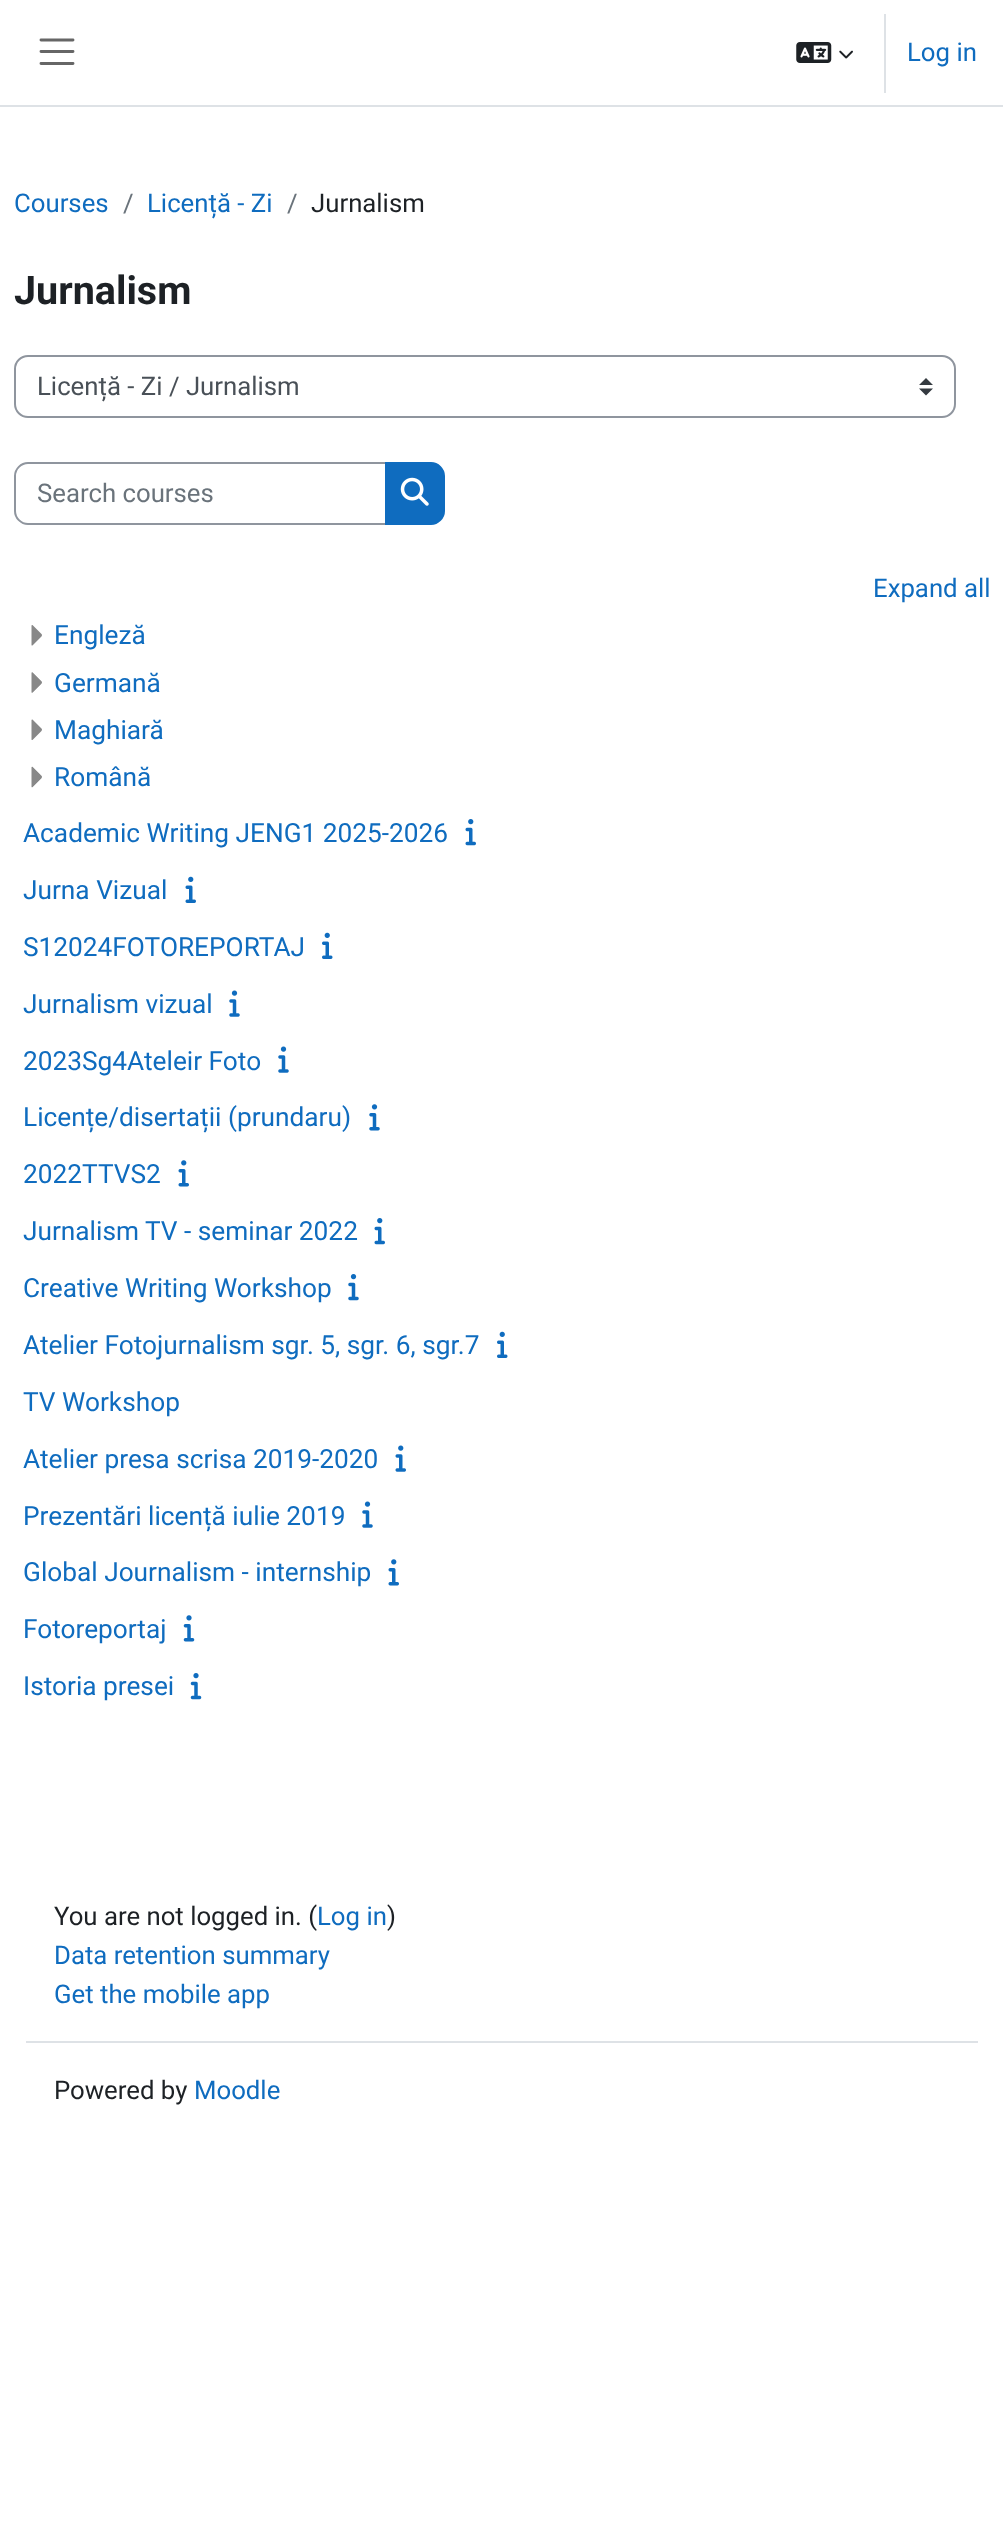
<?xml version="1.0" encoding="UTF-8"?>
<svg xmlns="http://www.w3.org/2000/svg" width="1003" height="2534">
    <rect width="100%" height="100%" fill="#FFFFFF"/>
    <rect x="0" y="105" width="1003" height="2" fill="#DEE2E6"/>
    <path d="M 41 40 H 73 M 41 51.5 H 73 M 41 63.5 H 73" fill="none" stroke="#666666" stroke-width="2.9" stroke-linecap="round"/>
    <image x="796" y="42" width="36" height="21" href="img_01.png"/>
    <image x="839" y="50" width="14" height="9" href="img_02.png"/>
    <rect x="884" y="14" width="2" height="79" fill="#DEE2E6"/>
    <text x="907" y="61" font-family="Roboto" font-size="25.75" fill="#0F6CBF">Log in</text>
    <text x="14" y="212" font-family="Roboto" font-size="25.75" fill="#0F6CBF">Courses</text>
    <text x="123" y="212" font-family="Roboto" font-size="25.75" fill="#6A737B">/</text>
    <text x="147" y="212" font-family="Roboto" font-size="25.75" fill="#0F6CBF">Licență - Zi</text>
    <text x="287" y="212" font-family="Roboto" font-size="25.75" fill="#6A737B">/</text>
    <text x="311" y="212" font-family="Roboto" font-size="25.75" fill="#1D2125">Jurnalism</text>
    <text x="14" y="304" font-family="Roboto" font-size="39.5" font-weight="700" fill="#1D2125">Jurnalism</text>
    <path d="M 926 378 L 919 385 H 933 Z M 926 395.5 L 919 388.5 H 933 Z" fill="#343A40"/>
    <rect x="15" y="356" width="940" height="61" rx="13" fill="none" stroke="#8F959E" stroke-width="2"/>
    <text x="37" y="395" font-family="Roboto" font-size="25.75" fill="#495057">Licență - Zi / Jurnalism</text>
    <path d="M 28 463 H 386 V 524 H 28 C 21 524 15 518 15 511 V 476 C 15 469 21 463 28 463 Z" fill="none" stroke="#8F959E" stroke-width="2"/>
    <text x="37" y="502" font-family="Roboto" font-size="25.75" fill="#6A737B">Search courses</text>
    <path d="M 386 463 H 431 C 438 463 444 469 444 476 V 511 C 444 518 438 524 431 524 H 386 Z" fill="#0F6CBF" stroke="#0F6CBF" stroke-width="2"/>
    <image x="400" y="477" width="29" height="29" href="img_03.png"/>
    <text x="873" y="597" font-family="Roboto" font-size="25.75" fill="#0F6CBF">Expand all</text>
    <image x="31" y="625" width="11" height="21" href="img_04.png"/>
    <text x="54" y="644" font-family="Roboto" font-size="26.25" fill="#0F6CBF">Engleză</text>
    <image x="31" y="672" width="11" height="21" href="img_05.png"/>
    <text x="54" y="692" font-family="Roboto" font-size="26.25" fill="#0F6CBF">Germană</text>
    <image x="31" y="719" width="11" height="21" href="img_06.png"/>
    <text x="54" y="739" font-family="Roboto" font-size="26.25" fill="#0F6CBF">Maghiară</text>
    <image x="31" y="766" width="11" height="22" href="img_07.png"/>
    <text x="54" y="786" font-family="Roboto" font-size="26.25" fill="#0F6CBF">Română</text>
    <text x="23" y="842" font-family="Roboto" font-size="26.25" fill="#0F6CBF">Academic Writing JENG1 2025-2026</text>
    <image x="465" y="819" width="11" height="27" href="img_08.png"/>
    <text x="23" y="899" font-family="Roboto" font-size="26.25" fill="#0F6CBF">Jurna Vizual</text>
    <image x="185" y="876" width="11" height="27" href="img_09.png"/>
    <text x="23" y="956" font-family="Roboto" font-size="26.25" fill="#0F6CBF">S12024FOTOREPORTAJ</text>
    <image x="322" y="932" width="11" height="27" href="img_10.png"/>
    <text x="23" y="1013" font-family="Roboto" font-size="26.25" fill="#0F6CBF">Jurnalism vizual</text>
    <image x="229" y="990" width="11" height="27" href="img_11.png"/>
    <text x="23" y="1070" font-family="Roboto" font-size="26.25" fill="#0F6CBF">2023Sg4Ateleir Foto</text>
    <image x="278" y="1046" width="11" height="27" href="img_11.png"/>
    <text x="23" y="1126" font-family="Roboto" font-size="26.25" fill="#0F6CBF">Licențe/disertații (prundaru)</text>
    <image x="369" y="1104" width="11" height="27" href="img_12.png"/>
    <text x="23" y="1183" font-family="Roboto" font-size="26.25" fill="#0F6CBF">2022TTVS2</text>
    <image x="178" y="1160" width="11" height="27" href="img_13.png"/>
    <text x="23" y="1240" font-family="Roboto" font-size="26.25" fill="#0F6CBF">Jurnalism TV - seminar 2022</text>
    <image x="374" y="1218" width="11" height="27" href="img_08.png"/>
    <text x="23" y="1297" font-family="Roboto" font-size="26.25" fill="#0F6CBF">Creative Writing Workshop</text>
    <image x="348" y="1274" width="11" height="27" href="img_14.png"/>
    <text x="23" y="1354" font-family="Roboto" font-size="26.25" fill="#0F6CBF">Atelier Fotojurnalism sgr. 5, sgr. 6, sgr.7</text>
    <image x="497" y="1331" width="11" height="27" href="img_10.png"/>
    <text x="23" y="1411" font-family="Roboto" font-size="26.25" fill="#0F6CBF">TV Workshop</text>
    <text x="23" y="1468" font-family="Roboto" font-size="26.25" fill="#0F6CBF">Atelier presa scrisa 2019-2020</text>
    <image x="395" y="1445" width="11" height="27" href="img_15.png"/>
    <text x="23" y="1525" font-family="Roboto" font-size="26.25" fill="#0F6CBF">Prezentări licență iulie 2019</text>
    <image x="362" y="1501" width="11" height="27" href="img_11.png"/>
    <text x="23" y="1581" font-family="Roboto" font-size="26.25" fill="#0F6CBF">Global Journalism - internship</text>
    <image x="388" y="1559" width="11" height="27" href="img_13.png"/>
    <text x="23" y="1638" font-family="Roboto" font-size="26.25" fill="#0F6CBF">Fotoreportaj</text>
    <image x="183" y="1615" width="12" height="27" href="img_16.png"/>
    <text x="23" y="1695" font-family="Roboto" font-size="26.25" fill="#0F6CBF">Istoria presei</text>
    <image x="190" y="1673" width="12" height="27" href="img_17.png"/>
    <rect x="26" y="2041" width="952" height="2" fill="#DEE2E6"/>
    <text x="54" y="1925" font-family="Roboto" font-size="25.75" fill="#1D2125">You are not logged in. (</text>
    <text x="317" y="1925" font-family="Roboto" font-size="25.75" fill="#0F6CBF">Log in</text>
    <text x="387" y="1925" font-family="Roboto" font-size="25.75" fill="#1D2125">)</text>
    <text font-family="Roboto" font-size="25.75" fill="#0F6CBF">
        <tspan x="54" y="1964">Data retention summary</tspan>
        <tspan x="54" y="2003">Get the mobile app</tspan>
    </text>
    <text x="54" y="2099" font-family="Roboto" font-size="25.75" fill="#1D2125">Powered by</text>
    <text x="194" y="2099" font-family="Roboto" font-size="25.75" fill="#0F6CBF">Moodle</text>
</svg>
